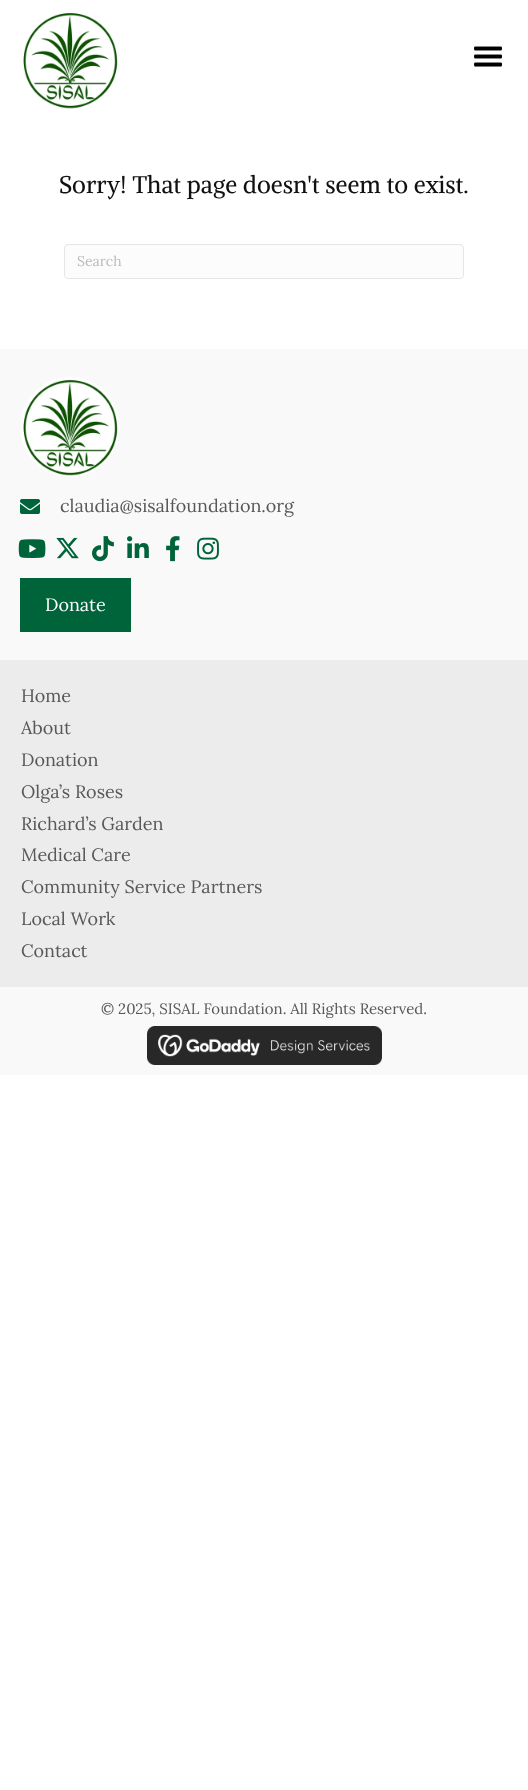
<?xml version="1.0" encoding="UTF-8"?>
<svg xmlns="http://www.w3.org/2000/svg" width="528" height="1790">
    <rect width="100%" height="100%" fill="#FFFFFF"/>
    <image x="23" y="12" width="95" height="97" href="img_01.png"/>
    <image x="474" y="46" width="28" height="21" href="img_02.png"/>
    <text x="59" y="193" font-family="Alike" font-size="24" fill="#111111">Sorry! That page doesn't seem to exist.</text>
    <rect x="64.5" y="244.5" width="399" height="34" rx="3.5" fill="#FCFCFC" stroke="#E6E6E6"/>
    <text x="77" y="266" font-family="Lora" font-size="14" fill="#BABABA">Search</text>
    <rect x="0" y="349" width="528" height="311" fill="#F9F9F9"/>
    <image x="20" y="377" width="100" height="100" href="img_03.png"/>
    <image x="20" y="499" width="20" height="15" href="img_04.png"/>
    <text x="60" y="512" font-family="Lora" font-size="18" fill="#585858">claudia@sisalfoundation.org</text>
    <image x="18" y="539" width="28" height="19" href="img_05.png"/>
    <image x="56" y="537" width="23" height="22" href="img_06.png"/>
    <image x="92" y="536" width="22" height="26" href="img_07.png"/>
    <image x="127" y="536" width="22" height="22" href="img_08.png"/>
    <image x="166" y="536" width="14" height="26" href="img_09.png"/>
    <image x="197" y="537" width="22" height="23" href="img_10.png"/>
    <rect x="20" y="578" width="111" height="54" fill="#00643A"/>
    <text x="45" y="611" font-family="Lora" font-size="18" fill="#FFFFFF">Donate</text>
    <rect x="0" y="660" width="528" height="327" fill="#ECECEC"/>
    <text font-family="Lora" font-size="18" fill="#585858">
        <tspan x="21" y="702">Home</tspan>
        <tspan x="21" y="734">About</tspan>
        <tspan x="21" y="766">Donation</tspan>
        <tspan x="21" y="798">Olga’s Roses</tspan>
        <tspan x="21" y="830">Richard’s Garden</tspan>
        <tspan x="21" y="861">Medical Care</tspan>
        <tspan x="21" y="893">Community Service Partners</tspan>
        <tspan x="21" y="925">Local Work</tspan>
        <tspan x="21" y="957">Contact</tspan>
    </text>
    <rect x="0" y="987" width="528" height="88" fill="#F9F9F9"/>
    <text x="101" y="1014" font-family="Lora" font-size="15" fill="#585858">© 2025, SISAL Foundation. All Rights Reserved.</text>
    <image x="147" y="1026" width="235" height="39" href="img_11.png"/>
</svg>
